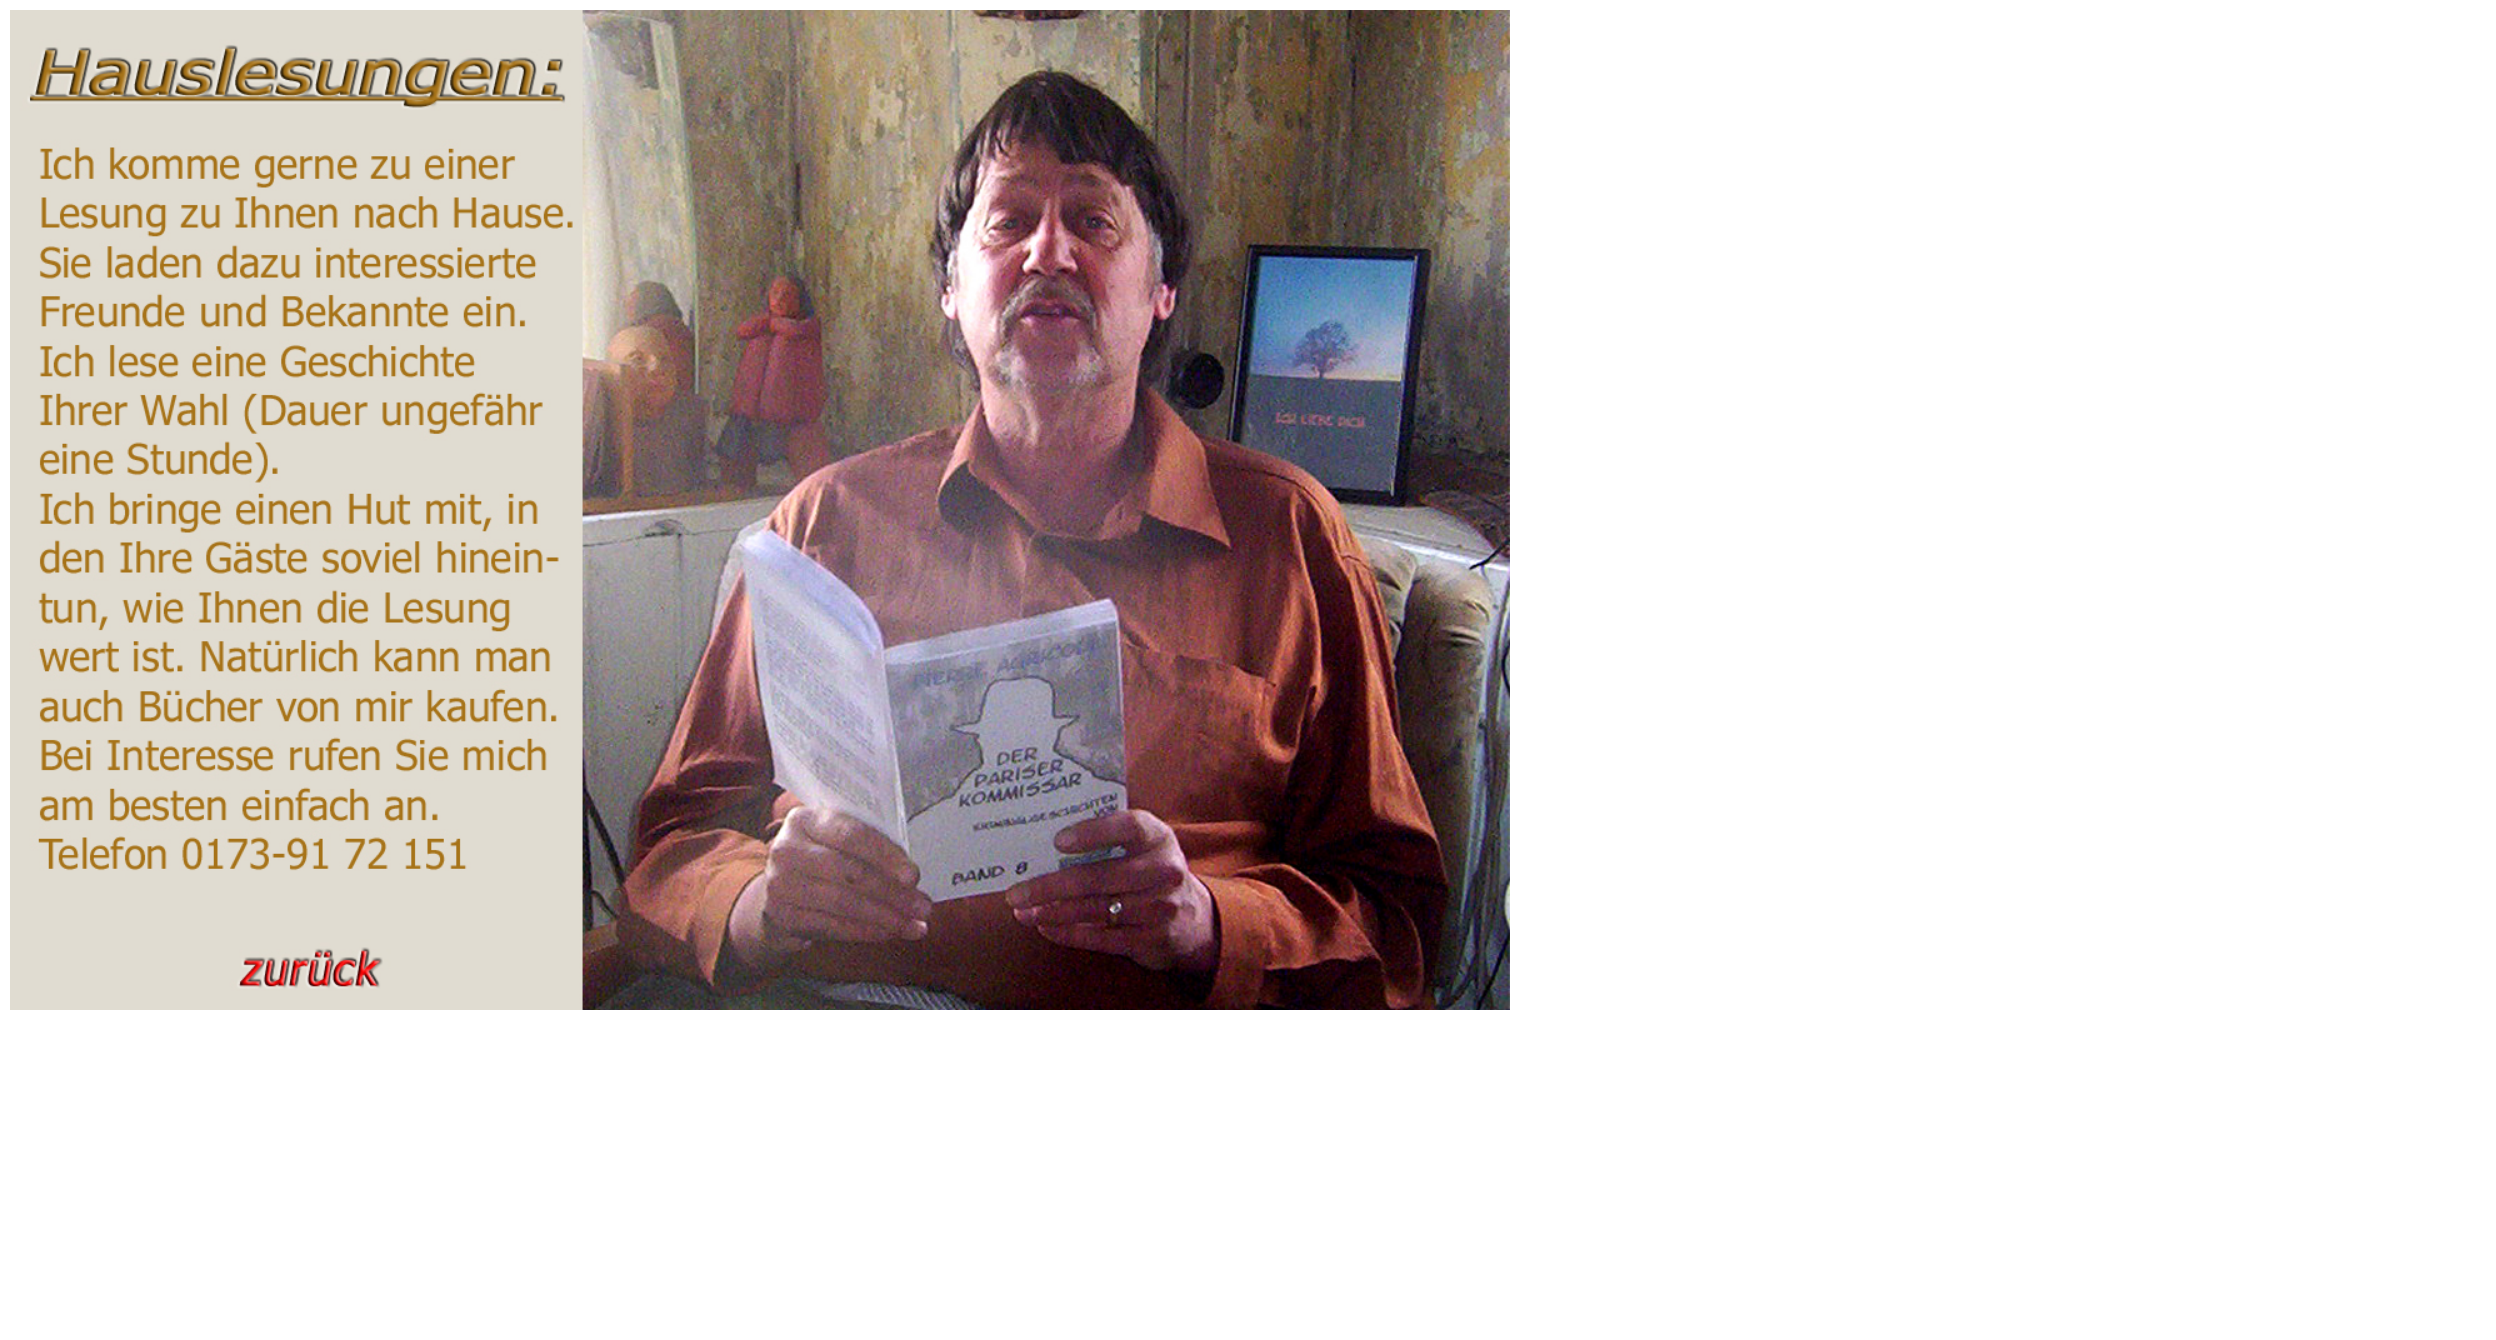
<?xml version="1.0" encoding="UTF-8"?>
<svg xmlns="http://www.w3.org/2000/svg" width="2496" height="1340">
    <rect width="100%" height="100%" fill="#FFFFFF"/>
    <image x="10" y="10" width="1500" height="1000" href="img_01.png"/>
</svg>
